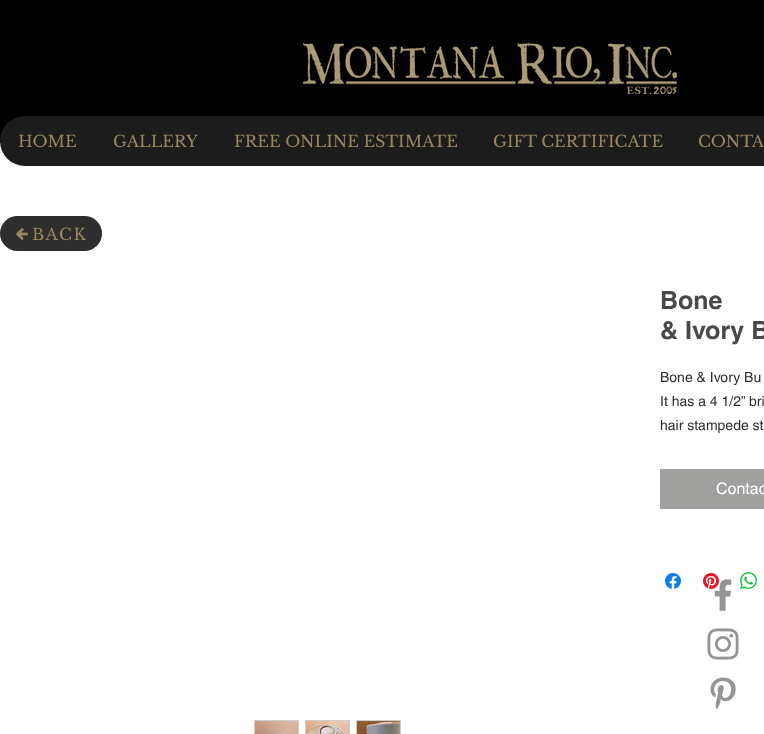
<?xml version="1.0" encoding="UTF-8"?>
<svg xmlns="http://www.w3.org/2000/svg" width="764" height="734">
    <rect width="100%" height="100%" fill="#000000"/>
    <image x="303" y="43" width="374" height="51" href="img_01.png"/>
    <rect x="0" y="143" width="764" height="591" fill="#FFFFFF"/>
    <rect x="0" y="116" width="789" height="50" rx="25" fill="#1C1C1C"/>
    <text x="18" y="147" font-family="Libre Baskerville" font-size="16" fill="#98865D">HOME</text>
    <text x="113" y="147" font-family="Libre Baskerville" font-size="16" fill="#98865D">GALLERY</text>
    <text x="234" y="147" font-family="Libre Baskerville" font-size="16" fill="#98865D">FREE ONLINE ESTIMATE</text>
    <text x="493" y="147" font-family="Libre Baskerville" font-size="16" fill="#98865D">GIFT CERTIFICATE</text>
    <text x="698" y="147" font-family="Libre Baskerville" font-size="16" fill="#98865D">CONTA</text>
    <rect x="0" y="216" width="102" height="35" rx="17.5" fill="#2F2E2E"/>
    <image x="16" y="228" width="12" height="12" href="img_02.png"/>
    <text x="32" y="240" font-family="Libre Baskerville" font-size="16" letter-spacing="1.5" fill="#98865D">BACK</text>
    <text font-family="helvetica" font-size="25" font-weight="700" fill="#494949">
        <tspan x="660" y="309">Bone</tspan>
        <tspan x="660" y="339">&amp; Ivory B</tspan>
    </text>
    <text font-family="helvetica" font-size="14" fill="#2F2E2E">
        <tspan x="660" y="382">Bone &amp; Ivory Bu</tspan>
        <tspan x="660" y="406">It has a 4 1/2” bri</tspan>
        <tspan x="660" y="430">hair stampede st</tspan>
    </text>
    <rect x="660" y="469" width="104" height="40" fill="#A0A09F"/>
    <text x="716" y="494" font-family="helvetica" font-size="16" fill="#FFFFFF">Contac</text>
    <image x="665" y="573" width="16" height="16" href="img_03.png"/>
    <image x="703" y="573" width="16" height="16" href="img_04.png"/>
    <image x="740" y="572" width="17" height="17" href="img_05.png"/>
    <rect x="254" y="720" width="45" height="14" fill="#CCCCCC"/>
    <image x="255" y="721" width="43" height="13" href="img_06.png"/>
    <rect x="305" y="720" width="45" height="14" fill="#CCCCCC"/>
    <image x="306" y="721" width="43" height="13" href="img_07.png"/>
    <rect x="356" y="720" width="45" height="14" fill="#CCCCCC"/>
    <image x="357" y="721" width="43" height="13" href="img_08.png"/>
    <image x="714" y="579" width="18" height="32" href="img_09.png"/>
    <image x="707" y="628" width="32" height="32" href="img_10.png"/>
    <image x="710" y="677" width="26" height="32" href="img_11.png"/>
</svg>
